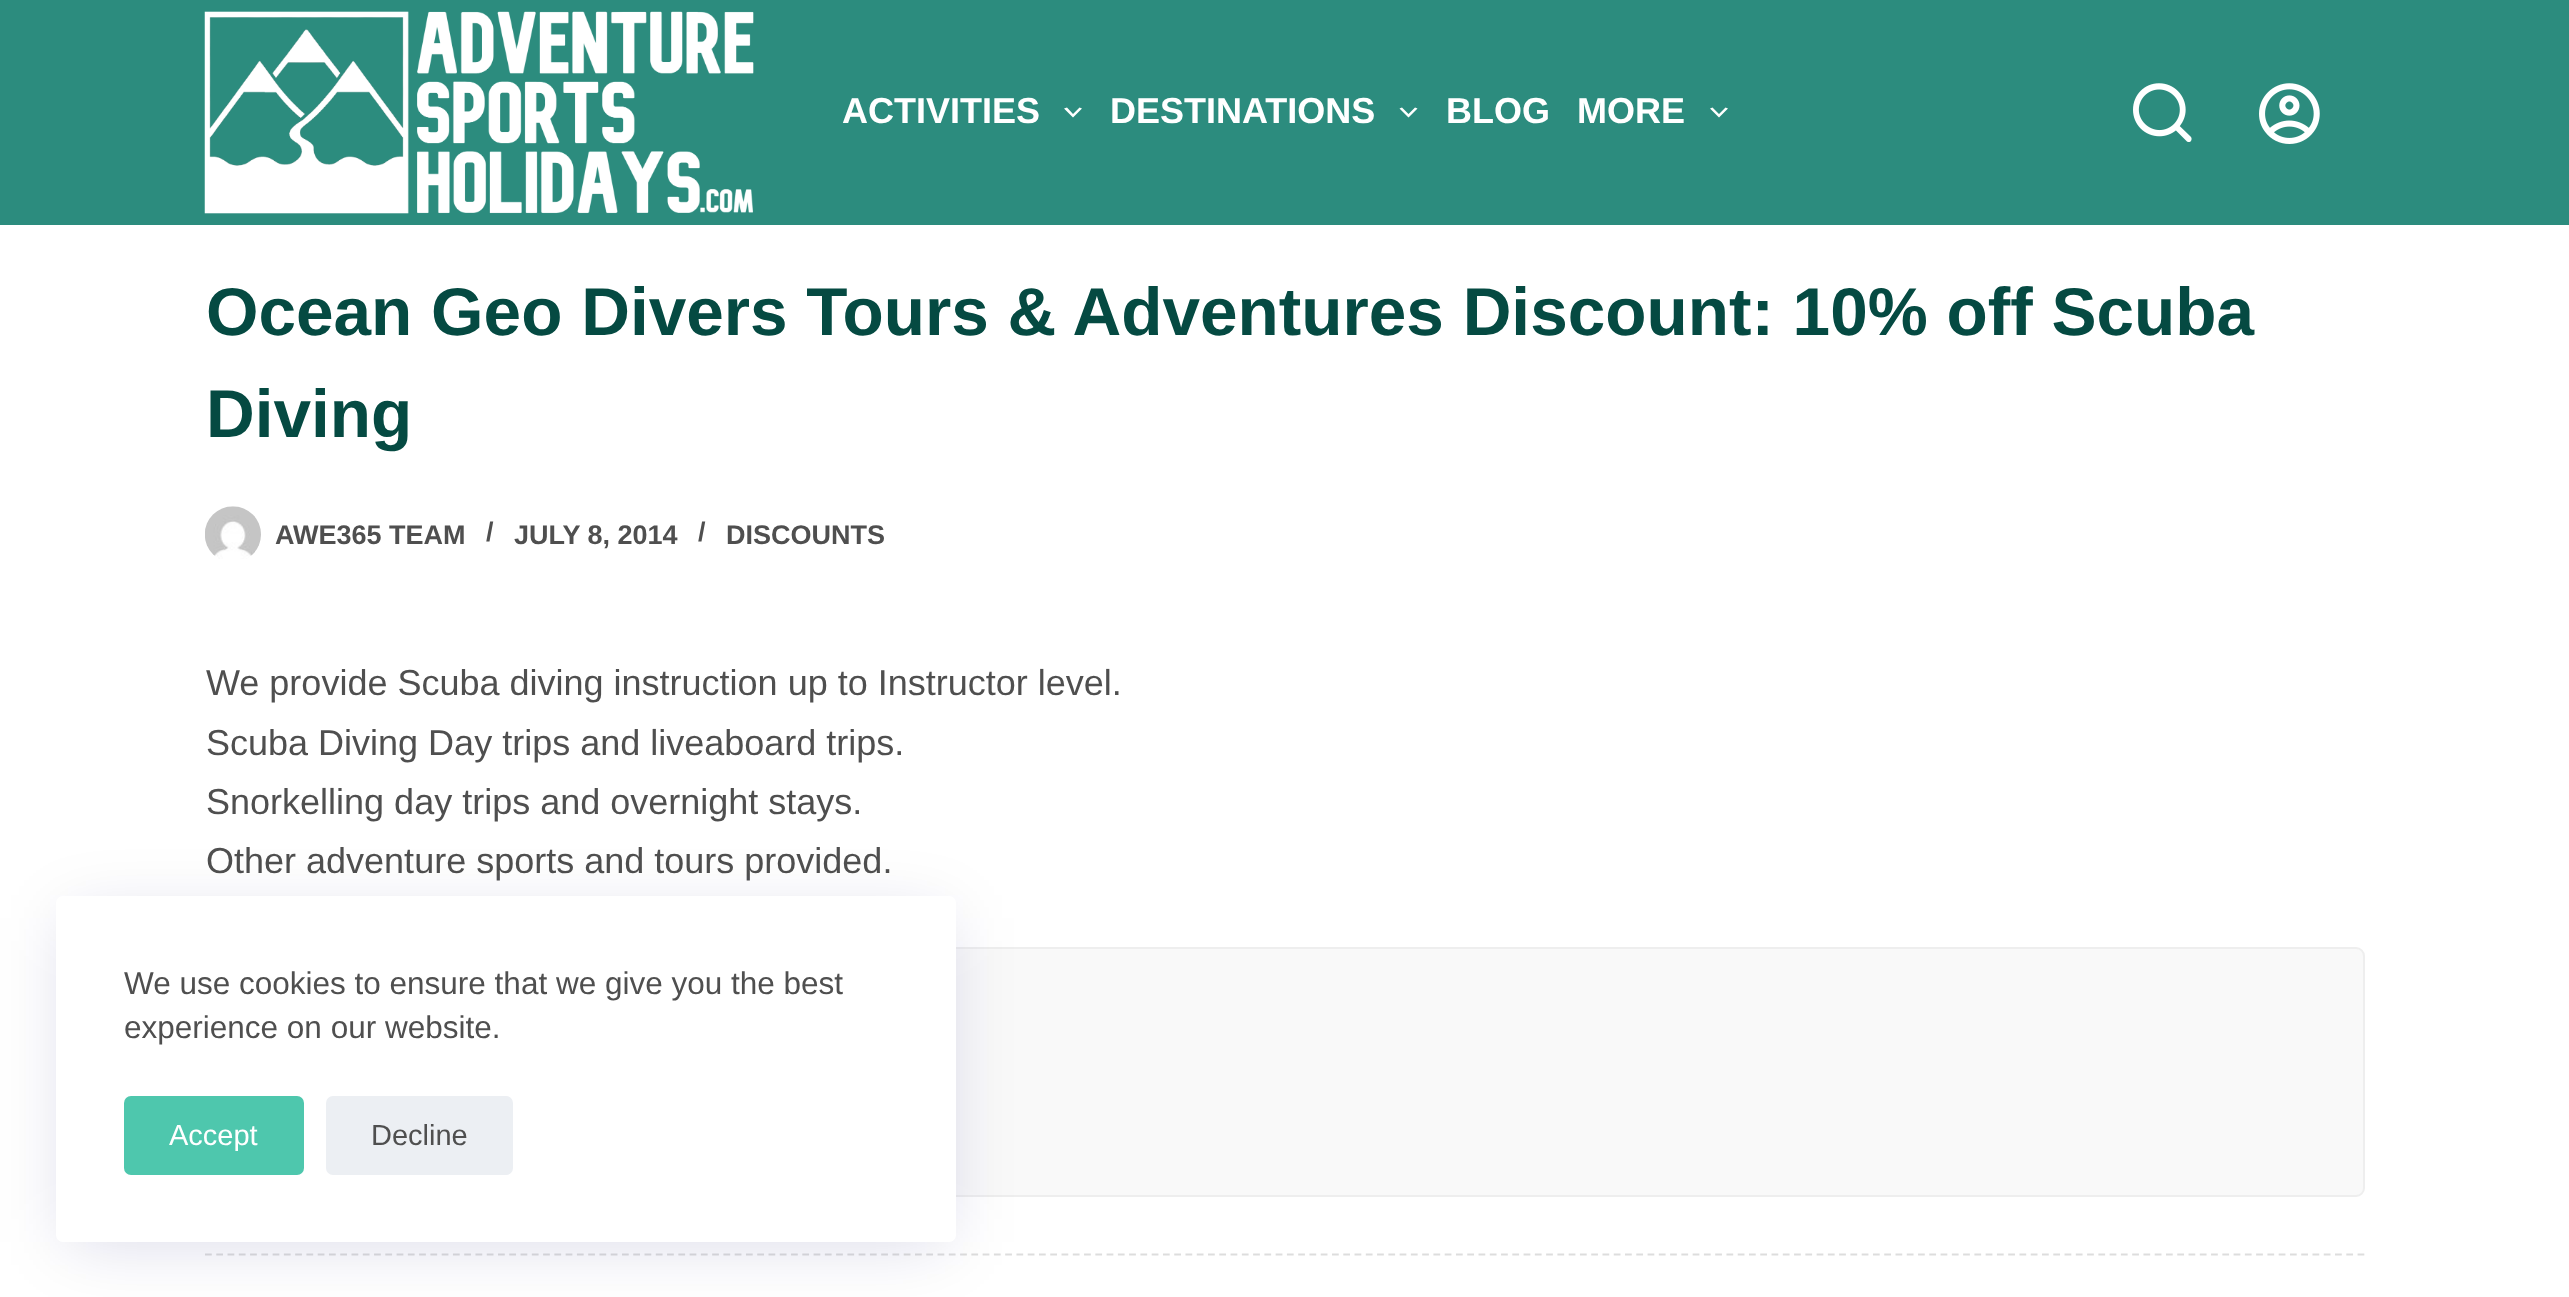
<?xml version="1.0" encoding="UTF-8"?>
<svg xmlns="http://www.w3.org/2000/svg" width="2569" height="1297">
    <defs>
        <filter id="blur1" x="-50%" y="-200%" width="200%" height="500%"><feGaussianBlur stdDeviation="34"/></filter>
    </defs>
    <rect width="100%" height="100%" fill="#FFFFFF"/>
    <rect x="0" y="0" width="2569" height="225" fill="#2C8C7E"/>
    <image x="204" y="11" width="550" height="203" href="img_01.png"/>
    <text x="842" y="123" font-family="Liberation Sans" font-size="36" font-weight="700" fill="#FFFFFF">ACTIVITIES</text>
    <path d="M 1067 107.5 L 1073 114 L 1079.5 107.5 L 1082 108.5 L 1073 117.5 L 1064 108.5 Z" fill="#FFFFFF"/>
    <text x="1110" y="123" font-family="Liberation Sans" font-size="36" font-weight="700" fill="#FFFFFF">DESTINATIONS</text>
    <path d="M 1402 107.5 L 1408.5 114 L 1415 107.5 L 1417.5 108.5 L 1408.5 117.5 L 1399.5 108.5 Z" fill="#FFFFFF"/>
    <text x="1446" y="123" font-family="Liberation Sans" font-size="36" font-weight="700" fill="#FFFFFF">BLOG</text>
    <text x="1577" y="123" font-family="Liberation Sans" font-size="36" font-weight="700" fill="#FFFFFF">MORE</text>
    <path d="M 1712.5 107.5 L 1719 114 L 1725.5 107.5 L 1728 108.5 L 1719 117.5 L 1710 108.5 Z" fill="#FFFFFF"/>
    <image x="2133" y="83" width="59" height="59" href="img_02.png"/>
    <image x="2259" y="83" width="61" height="61" href="img_03.png"/>
    <text font-family="Liberation Sans" font-size="67.5" font-weight="700" fill="#054A42">
        <tspan x="206" y="335">Ocean Geo Divers Tours &amp; Adventures Discount: 10% off Scuba</tspan>
        <tspan x="206" y="437">Diving</tspan>
    </text>
    <image x="205" y="506" width="56" height="53" href="img_04.png"/>
    <text x="275" y="544" font-family="Liberation Sans" font-size="27" font-weight="700" fill="#4F4F4F">AWE365 TEAM</text>
    <text x="486" y="541" font-family="Liberation Sans" font-size="27" font-weight="700" fill="#4F4F4F">/</text>
    <text x="514" y="544" font-family="Liberation Sans" font-size="27" font-weight="700" fill="#4F4F4F">JULY 8, 2014</text>
    <text x="698" y="541" font-family="Liberation Sans" font-size="27" font-weight="700" fill="#4F4F4F">/</text>
    <text x="726" y="544" font-family="Liberation Sans" font-size="27" font-weight="700" fill="#4F4F4F">DISCOUNTS</text>
    <text font-family="Liberation Sans" font-size="36" fill="#4F4F4F">
        <tspan x="206" y="695">We provide Scuba diving instruction up to Instructor level.</tspan>
        <tspan x="206" y="755">Scuba Diving Day trips and liveaboard trips.</tspan>
        <tspan x="206" y="814">Snorkelling day trips and overnight stays.</tspan>
        <tspan x="206" y="873">Other adventure sports and tours provided.</tspan>
    </text>
    <rect x="206" y="948" width="2158" height="248" rx="8" fill="#F9F9F9" stroke="#EEEEEE" stroke-width="2"/>
    <path d="M 205 1254.5 H 2365" fill="none" stroke="#DDDDDD" stroke-width="2.2" stroke-dasharray="6.75 4.52"/>
    <rect x="68" y="918" width="877" height="324" fill="#223865" fill-opacity="0.15" filter="url(#blur1)"/>
    <rect x="56" y="896" width="900" height="346" rx="7" fill="#FFFFFF"/>
    <text font-family="Liberation Sans" font-size="31.5" fill="#4F4F4F">
        <tspan x="124" y="994">We use cookies to ensure that we give you the best</tspan>
        <tspan x="124" y="1038">experience on our website.</tspan>
    </text>
    <rect x="124" y="1096" width="180" height="79" rx="7" fill="#4EC7AD"/>
    <text x="169" y="1145" font-family="Liberation Sans" font-size="29" fill="#FFFFFF">Accept</text>
    <rect x="326" y="1096" width="187" height="79" rx="7" fill="#ECEFF3"/>
    <text x="371" y="1145" font-family="Liberation Sans" font-size="29" fill="#4F4F4F">Decline</text>
</svg>
